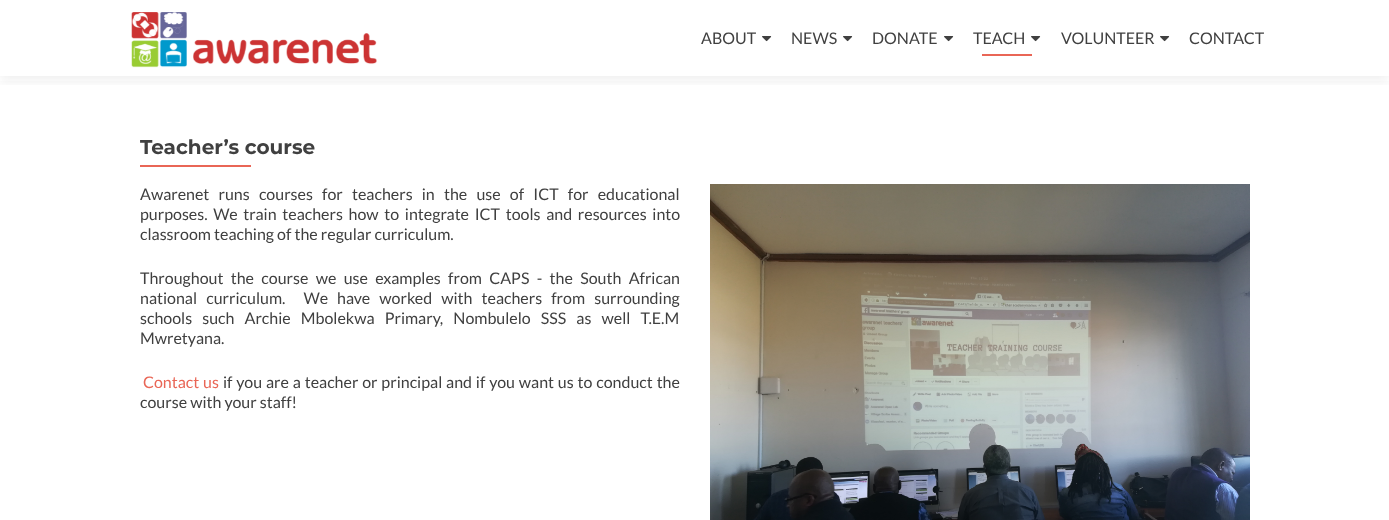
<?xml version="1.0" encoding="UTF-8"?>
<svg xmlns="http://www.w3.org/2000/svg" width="1389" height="520">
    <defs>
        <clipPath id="clip1"><rect x="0" y="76" width="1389" height="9"/></clipPath>
        <filter id="blur1" x="-50%" y="-200%" width="200%" height="500%"><feGaussianBlur stdDeviation="5.5"/></filter>
        <clipPath id="clip2"><rect x="140" y="136" width="1110" height="32"/></clipPath>
    </defs>
    <rect width="100%" height="100%" fill="#FFFFFF"/>
    <g clip-path="url(#clip1)">
        <rect x="0" y="5" width="1389" height="76" fill="#323232" fill-opacity="0.08" filter="url(#blur1)"/>
    </g>
    <image x="131" y="12" width="246" height="56" href="img_01.png"/>
    <text x="701" y="44" font-family="Lato" font-size="16" fill="#404040">ABOUT</text>
    <image x="762" y="36" width="10" height="6" href="img_02.png"/>
    <text x="791" y="44" font-family="Lato" font-size="16" fill="#404040">NEWS</text>
    <image x="843" y="36" width="10" height="6" href="img_02.png"/>
    <text x="872" y="44" font-family="Lato" font-size="16" fill="#404040">DONATE</text>
    <image x="944" y="36" width="10" height="6" href="img_02.png"/>
    <text x="973" y="44" font-family="Lato" font-size="16" fill="#404040">TEACH</text>
    <image x="1031" y="36" width="10" height="6" href="img_02.png"/>
    <rect x="982" y="54" width="50" height="2" fill="#E96656"/>
    <text x="1061" y="44" font-family="Lato" font-size="16" fill="#404040">VOLUNTEER</text>
    <image x="1160" y="36" width="10" height="6" href="img_02.png"/>
    <text x="1189" y="44" font-family="Lato" font-size="16" fill="#404040">CONTACT</text>
    <g clip-path="url(#clip2)">
        <text x="140" y="154" font-family="Montserrat" font-size="20" font-weight="700" fill="#404040">Teacher’s course</text>
    </g>
    <rect x="140" y="165" width="111" height="2" fill="#E96656"/>
    <text font-family="Lato" font-size="16" fill="#404040">
        <tspan x="140" y="200" word-spacing="6.1">Awarenet runs courses for teachers in the use of ICT for educational</tspan>
        <tspan x="140" y="220" word-spacing="2.6">purposes. We train teachers how to integrate ICT tools and resources into</tspan>
        <tspan x="140" y="240">classroom teaching of the regular curriculum.</tspan>
    </text>
    <text font-family="Lato" font-size="16" fill="#404040" xml:space="preserve"><tspan x="140" y="284" word-spacing="4.25">Throughout the course we use examples from CAPS - the South African</tspan><tspan x="140" y="304" word-spacing="6">national curriculum.  We have worked with teachers from surrounding</tspan><tspan x="140" y="324" word-spacing="7">schools such Archie Mbolekwa Primary, Nombulelo SSS as well T.E.M</tspan><tspan x="140" y="344">Mwretyana.</tspan></text>
    <text x="143" y="388" word-spacing="0.75" font-family="Lato" font-size="16" fill="#E96656">Contact us</text>
    <text x="223" y="388" word-spacing="0.75" font-family="Lato" font-size="16" fill="#404040">if you are a teacher or principal and if you want us to conduct the</text>
    <text x="140" y="408" font-family="Lato" font-size="16" fill="#404040">course with your staff!</text>
    <image x="710" y="184" width="540" height="336" href="img_03.png"/>
</svg>
